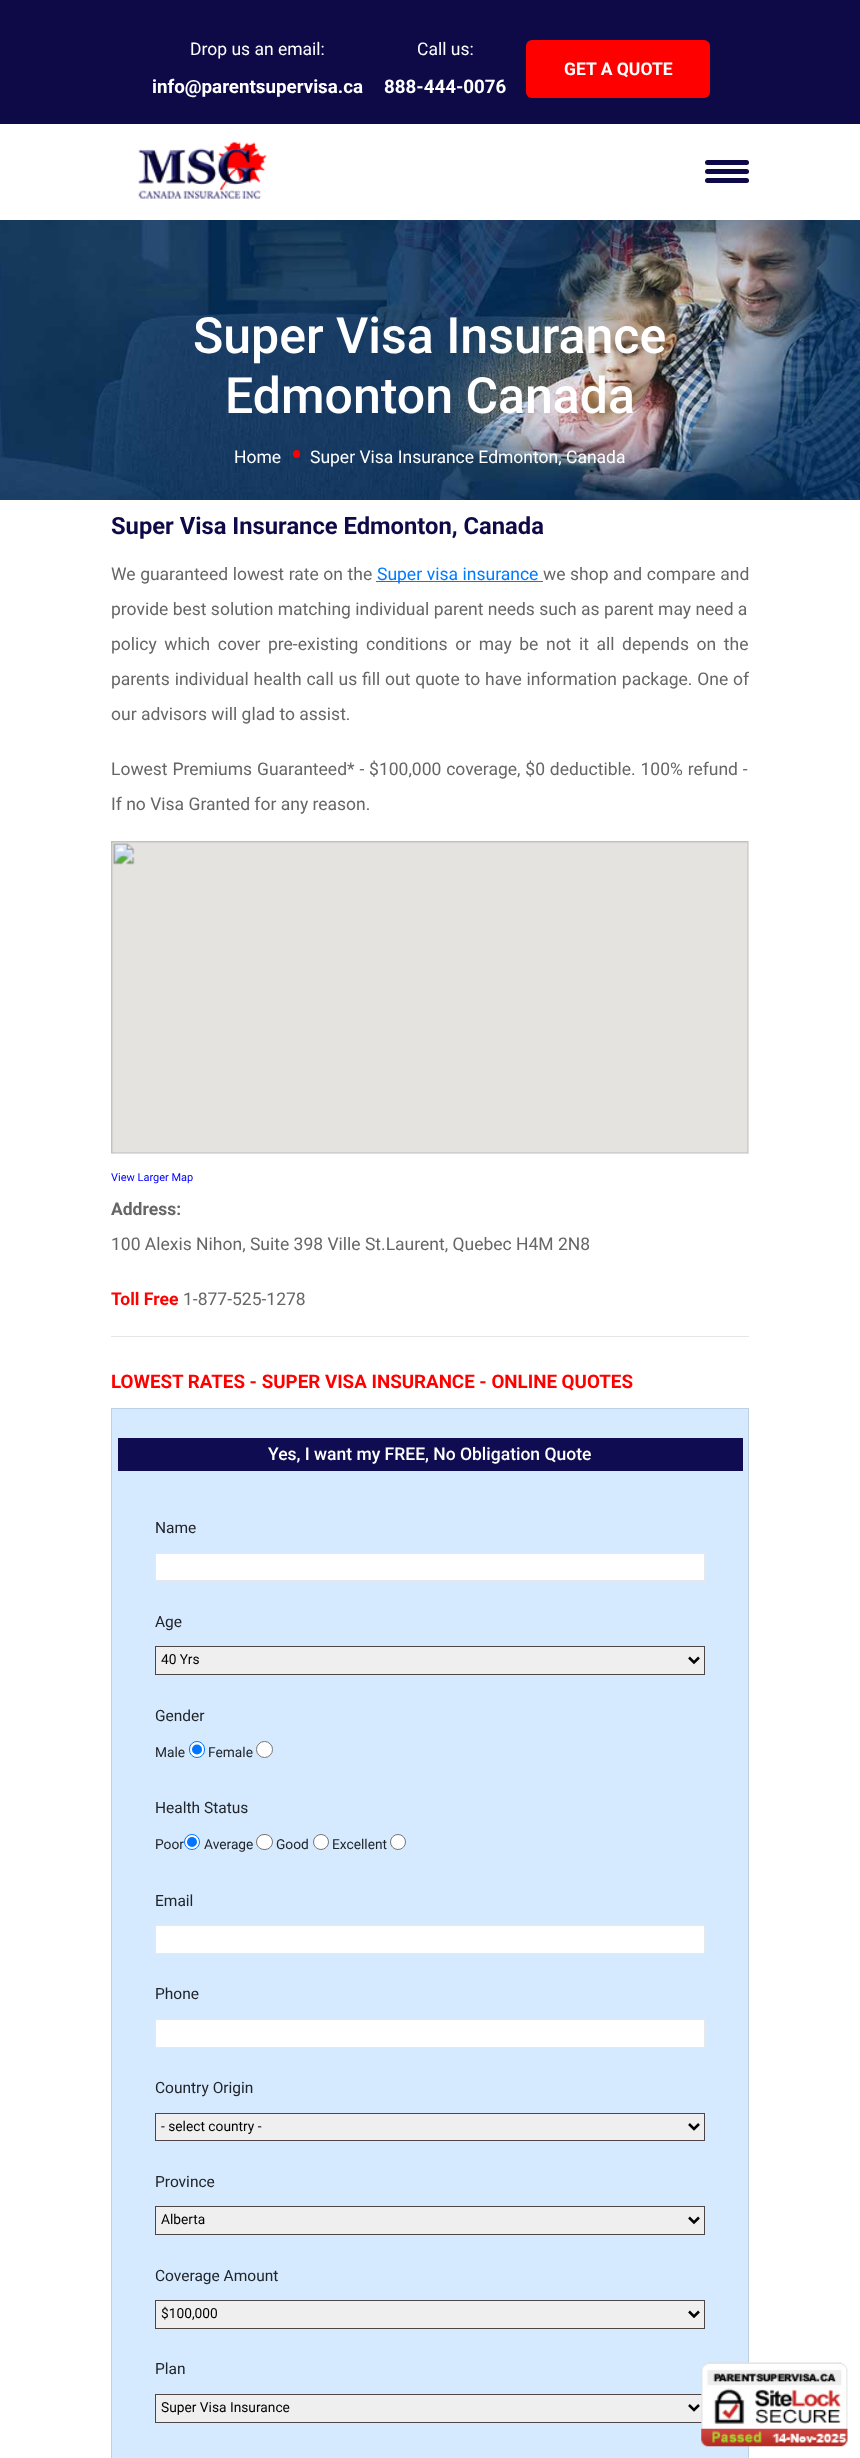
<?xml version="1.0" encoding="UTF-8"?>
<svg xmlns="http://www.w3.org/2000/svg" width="860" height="2458">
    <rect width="100%" height="100%" fill="#FFFFFF"/>
    <rect x="0" y="0" width="860" height="124" fill="#0D0A47"/>
    <text x="190" y="55" font-family="Roboto" font-size="17.5" fill="#FFFFFF">Drop us an email:</text>
    <text x="152" y="93" font-family="Roboto" font-size="18.75" font-weight="700" fill="#FFFFFF">info@parentsupervisa.ca</text>
    <text x="417" y="55" font-family="Roboto" font-size="17.5" fill="#FFFFFF">Call us:</text>
    <text x="384" y="93" font-family="Roboto" font-size="18.75" font-weight="700" fill="#FFFFFF">888-444-0076</text>
    <rect x="526" y="40" width="184" height="58" rx="6" fill="#FF0000"/>
    <text x="564" y="75" font-family="Roboto" font-size="17.5" font-weight="700" fill="#FFFFFF">GET A QUOTE</text>
    <image x="138" y="142" width="129" height="57" href="img_01.png"/>
    <rect x="705" y="160" width="44" height="5" rx="2.5" fill="#0D0A47"/>
    <rect x="705" y="169" width="44" height="5" rx="2.5" fill="#0D0A47"/>
    <rect x="705" y="178" width="44" height="5" rx="2.5" fill="#0D0A47"/>
    <image x="0" y="220" width="860" height="280" href="img_02.png"/>
    <text x="193" y="353" font-family="Roboto" font-size="50" font-weight="500" fill="#FFFFFF">Super Visa Insurance</text>
    <text x="225" y="413" font-family="Roboto" font-size="50" font-weight="500" fill="#FFFFFF">Edmonton Canada</text>
    <text x="234" y="463" font-family="Roboto" font-size="17.5" fill="#FFFFFF">Home</text>
    <rect x="293" y="450" width="7" height="8" rx="3.5" fill="#FF0000"/>
    <text x="310" y="463" font-family="Roboto" font-size="17.5" fill="#FFFFFF">Super Visa Insurance Edmonton, Canada</text>
    <text x="111" y="534" font-family="Roboto" font-size="23.75" font-weight="700" fill="#0D0A47">Super Visa Insurance Edmonton, Canada</text>
    <text x="111" y="580" word-spacing="0.25" font-family="Roboto" font-size="17.5" fill="#666666">We guaranteed lowest rate on the</text>
    <rect x="376" y="581" width="167" height="1" fill="#007BFF"/>
    <text x="377" y="580" word-spacing="0.25" font-family="Roboto" font-size="17.5" fill="#007BFF">Super visa insurance</text>
    <text x="543" y="580" word-spacing="0.25" font-family="Roboto" font-size="17.5" fill="#666666">we shop and compare and</text>
    <text x="111" y="615" font-family="Roboto" font-size="17.5" fill="#666666">provide best solution matching individual parent needs such as parent may need a</text>
    <text x="111" y="650" word-spacing="3.25" font-family="Roboto" font-size="17.5" fill="#666666">policy which cover pre-existing conditions or may be not it all depends on the</text>
    <text x="111" y="685" word-spacing="0.5" font-family="Roboto" font-size="17.5" fill="#666666">parents individual health call us fill out quote to have information package. One of</text>
    <text x="111" y="720" font-family="Roboto" font-size="17.5" fill="#666666">our advisors will glad to assist.</text>
    <text x="111" y="775" word-spacing="0.5" font-family="Roboto" font-size="17.5" fill="#666666">Lowest Premiums Guaranteed* - $100,000 coverage, $0 deductible. 100% refund -</text>
    <text x="111" y="810" font-family="Roboto" font-size="17.5" fill="#666666">If no Visa Granted for any reason.</text>
    <image x="111" y="841" width="638" height="313" href="img_03.png"/>
    <text x="111" y="1181" font-family="Roboto" font-size="11" fill="#0000FF">View Larger Map</text>
    <text x="111" y="1215" font-family="Roboto" font-size="17.5" font-weight="700" fill="#666666">Address:</text>
    <text x="111" y="1250" font-family="Roboto" font-size="17.5" fill="#666666">100 Alexis Nihon, Suite 398 Ville St.Laurent, Quebec H4M 2N8</text>
    <text x="111" y="1305" font-family="Roboto" font-size="17.5" font-weight="700" fill="#FF0000">Toll Free</text>
    <text x="183" y="1305" font-family="Roboto" font-size="17.5" fill="#666666">1-877-525-1278</text>
    <rect x="111" y="1336" width="638" height="1" fill="#E6E6E6"/>
    <text x="111" y="1388" font-family="Roboto" font-size="18.75" font-weight="700" fill="#FF0000">LOWEST RATES - SUPER VISA INSURANCE - ONLINE QUOTES</text>
    <rect x="111.5" y="1408.5" width="637" height="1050" fill="#D5E9FF" stroke="#BED0E4"/>
    <rect x="118" y="1438" width="625" height="33" fill="#100C51"/>
    <text x="268" y="1460" font-family="Roboto" font-size="17.5" font-weight="500" fill="#FFFFFF">Yes, I want my FREE, No Obligation Quote</text>
    <text x="155" y="1533" font-family="Roboto" font-size="15.5" fill="#212529">Name</text>
    <rect x="155.5" y="1553.5" width="549" height="27" fill="#FFFFFF" stroke="#E8E8E8"/>
    <text x="155" y="1627" font-family="Roboto" font-size="15.5" fill="#212529">Age</text>
    <rect x="155.5" y="1646.5" width="549" height="28" fill="#EFEFEF" stroke="#4E4646"/>
    <path d="M 689 1657.5 L 694 1662.5 L 699 1657.5" fill="none" stroke="#000000" stroke-width="2.5"/>
    <text x="161" y="1664" font-family="Roboto" font-size="13.75" fill="#000000">40 Yrs</text>
    <text x="155" y="1721" font-family="Roboto" font-size="15.5" fill="#212529">Gender</text>
    <text x="155" y="1757" font-family="Roboto" font-size="13.75" fill="#212529">Male</text>
    <rect x="189.5" y="1741.5" width="15" height="16" rx="7.5" fill="#FFFFFF" stroke="#0075FF"/>
    <circle cx="197" cy="1749.5" r="5" fill="#0075FF"/>
    <text x="208" y="1757" font-family="Roboto" font-size="13.75" fill="#212529">Female</text>
    <circle cx="264.5" cy="1749.5" r="8" fill="#FFFFFF" stroke="#767676"/>
    <text x="155" y="1813" font-family="Roboto" font-size="15.5" fill="#212529">Health Status</text>
    <text x="155" y="1849" font-family="Roboto" font-size="13.75" fill="#212529">Poor</text>
    <circle cx="192" cy="1842" r="7.5" fill="#FFFFFF" stroke="#0075FF"/>
    <circle cx="192" cy="1842" r="5" fill="#0075FF"/>
    <text x="204" y="1849" font-family="Roboto" font-size="13.75" fill="#212529">Average</text>
    <rect x="256.5" y="1834.5" width="16" height="15" rx="7.5" fill="#FFFFFF" stroke="#767676"/>
    <text x="276" y="1849" font-family="Roboto" font-size="13.75" fill="#212529">Good</text>
    <circle cx="321" cy="1842" r="7.5" fill="#FFFFFF" stroke="#767676"/>
    <text x="332" y="1849" font-family="Roboto" font-size="13.75" fill="#212529">Excellent</text>
    <circle cx="398" cy="1842" r="7.5" fill="#FFFFFF" stroke="#767676"/>
    <text x="155" y="1906" font-family="Roboto" font-size="15.5" fill="#212529">Email</text>
    <rect x="155.5" y="1925.5" width="549" height="28" fill="#FFFFFF" stroke="#E8E8E8"/>
    <text x="155" y="1999" font-family="Roboto" font-size="15.5" fill="#212529">Phone</text>
    <rect x="155.5" y="2019.5" width="549" height="28" fill="#FFFFFF" stroke="#E8E8E8"/>
    <text x="155" y="2093" font-family="Roboto" font-size="15.5" fill="#212529">Country Origin</text>
    <rect x="155.5" y="2113.5" width="549" height="27" fill="#EFEFEF" stroke="#4E4646"/>
    <path d="M 689 2124 L 694 2129 L 699 2124" fill="none" stroke="#000000" stroke-width="2.5"/>
    <text x="161" y="2131" font-family="Roboto" font-size="13.75" fill="#000000">- select country -</text>
    <text x="155" y="2187" font-family="Roboto" font-size="15.5" fill="#212529">Province</text>
    <rect x="155.5" y="2206.5" width="549" height="28" fill="#EFEFEF" stroke="#4E4646"/>
    <path d="M 689 2217.5 L 694 2222.5 L 699 2217.5" fill="none" stroke="#000000" stroke-width="2.5"/>
    <text x="161" y="2224" font-family="Roboto" font-size="13.75" fill="#000000">Alberta</text>
    <text x="155" y="2281" font-family="Roboto" font-size="15.5" fill="#212529">Coverage Amount</text>
    <rect x="155.5" y="2300.5" width="549" height="28" fill="#EFEFEF" stroke="#4E4646"/>
    <path d="M 689 2311.5 L 694 2316.5 L 699 2311.5" fill="none" stroke="#000000" stroke-width="2.5"/>
    <text x="161" y="2318" font-family="Roboto" font-size="13.75" fill="#000000">$100,000</text>
    <text x="155" y="2374" font-family="Roboto" font-size="15.5" fill="#212529">Plan</text>
    <rect x="156" y="2395" width="546" height="27" fill="#EFEFEF"/>
    <rect x="155.5" y="2394.5" width="549" height="28" fill="none" stroke="#4E4646"/>
    <path d="M 689 2405 L 694 2410 L 699 2405" fill="none" stroke="#000000" stroke-width="2.5"/>
    <text x="161" y="2412" font-family="Roboto" font-size="13.75" fill="#000000">Super Visa Insurance</text>
    <image x="701" y="2362" width="147" height="85" href="img_04.png"/>
</svg>
